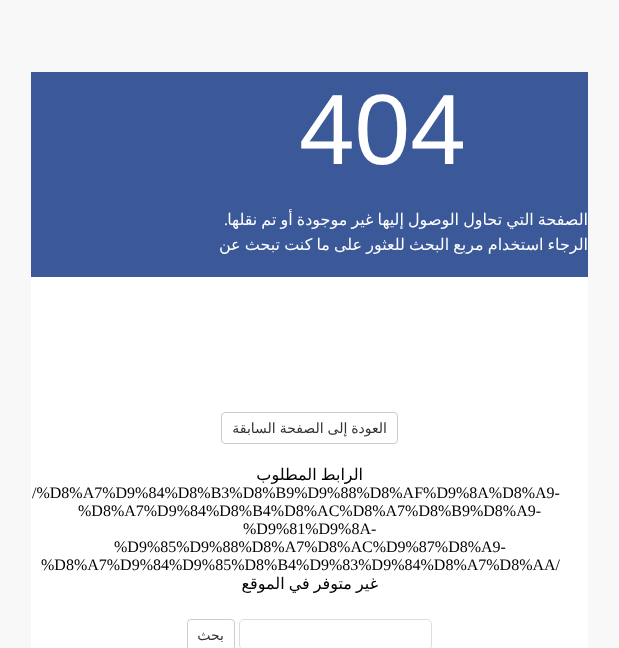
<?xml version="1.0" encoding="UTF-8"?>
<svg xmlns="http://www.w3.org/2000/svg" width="619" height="648">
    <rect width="100%" height="100%" fill="#F8F8F8"/>
    <rect x="31" y="72" width="557" height="205" fill="#3B5998"/>
    <text x="299" y="164" font-family="Liberation Sans" font-size="100" fill="#FFFFFF">404</text>
    <text x="228" y="225" font-family="Liberation Serif" font-size="16" direction="rtl" fill="#FFFFFF">.</text>
    <text font-family="DejaVu Sans" font-size="16" direction="rtl" fill="#FFFFFF">
        <tspan x="588" y="225" word-spacing="-1">الصفحة التي تحاول الوصول إليها غير موجودة أو تم نقلها</tspan>
        <tspan x="588" y="250" word-spacing="-1">الرجاء استخدام مربع البحث للعثور على ما كنت تبحث عن</tspan>
    </text>
    <rect x="31" y="277" width="557" height="371" fill="#FFFFFF"/>
    <rect x="221.5" y="412.5" width="176" height="31" rx="3.5" fill="none" stroke="#CCCCCC"/>
    <text x="387" y="433" word-spacing="-0.5" font-family="DejaVu Sans" font-size="14" direction="rtl" fill="#333333">العودة إلى الصفحة السابقة</text>
    <text x="363" y="480" word-spacing="-1" font-family="DejaVu Sans" font-size="16" direction="rtl" fill="#000000">الرابط المطلوب</text>
    <text x="32" y="498" font-family="Liberation Serif" font-size="16" fill="#000000">/%D8%A7%D9%84%D8%B3%D8%B9%D9%88%D8%AF%D9%8A%D8%A9-</text>
    <text x="78" y="516" font-family="Liberation Serif" font-size="16" fill="#000000">%D8%A7%D9%84%D8%B4%D8%AC%D8%A7%D8%B9%D8%A9-</text>
    <text x="243" y="534" font-family="Liberation Serif" font-size="16" fill="#000000">%D9%81%D9%8A-</text>
    <text x="114" y="552" font-family="Liberation Serif" font-size="16" fill="#000000">%D9%85%D9%88%D8%A7%D8%AC%D9%87%D8%A9-</text>
    <text x="41" y="570" font-family="Liberation Serif" font-size="16" fill="#000000">%D8%A7%D9%84%D9%85%D8%B4%D9%83%D9%84%D8%A7%D8%AA/</text>
    <text x="378" y="589" word-spacing="-1" font-family="DejaVu Sans" font-size="16" direction="rtl" fill="#000000">غير متوفر في الموقع</text>
    <rect x="187.5" y="619.5" width="47" height="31" rx="3.5" fill="none" stroke="#CCCCCC"/>
    <text x="224" y="640" font-family="DejaVu Sans" font-size="14" direction="rtl" fill="#333333">بحث</text>
    <rect x="239.5" y="619.5" width="192" height="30" rx="4.5" fill="none" stroke="#DDDDDD"/>
</svg>
